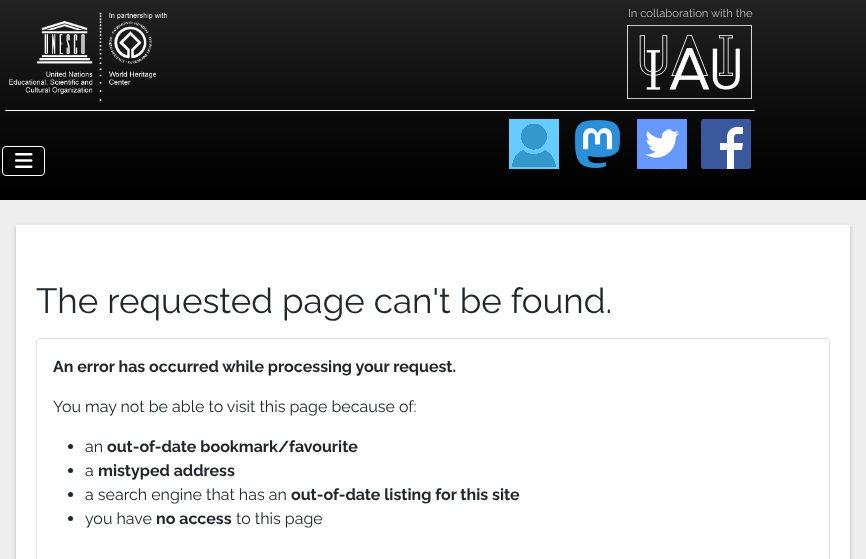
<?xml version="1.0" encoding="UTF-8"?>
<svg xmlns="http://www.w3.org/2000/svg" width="866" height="559">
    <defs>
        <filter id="blur1" x="-50%" y="-200%" width="200%" height="500%"><feGaussianBlur stdDeviation="2"/></filter>
    </defs>
    <rect width="100%" height="100%" fill="#FFFFFF"/>
    <image x="0" y="0" width="866" height="200" href="img_01.png"/>
    <rect x="5" y="110" width="750" height="1" fill="#FFFFFF"/>
    <image x="9" y="12" width="159" height="89" href="img_02.png"/>
    <text x="628" y="17" font-family="Raleway" font-size="11.25" font-weight="100" fill="#B9B9B9">In collaboration with the</text>
    <image x="627" y="25" width="125" height="74" href="img_03.png"/>
    <image x="509" y="119" width="50" height="50" href="img_04.png"/>
    <image x="575" y="120" width="45" height="48" href="img_05.png"/>
    <image x="637" y="119" width="50" height="50" href="img_06.png"/>
    <image x="701" y="119" width="50" height="50" href="img_07.png"/>
    <rect x="2.5" y="146.5" width="42" height="29" rx="3.5" fill="none" stroke="#FFFFFF"/>
    <image x="15" y="153" width="18" height="15" href="img_08.png"/>
    <rect x="0" y="200" width="866" height="359" fill="#EEEEEE"/>
    <rect x="16" y="227" width="834" height="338" fill="#000000" fill-opacity="0.25" filter="url(#blur1)"/>
    <rect x="16" y="225" width="834" height="334" fill="#FFFFFF"/>
    <text x="36" y="313" font-family="Raleway" font-size="35" font-weight="100" fill="#22262A">The requested page can't be found.</text>
    <rect x="36.5" y="338.5" width="793" height="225" rx="3.5" fill="none" stroke="#DFE3E7"/>
    <text x="53" y="372" font-family="'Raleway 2'" font-size="16" font-weight="100" fill="#22262A">An error has occurred while processing your request.</text>
    <text x="53" y="412" font-family="Raleway" font-size="16" font-weight="100" fill="#22262A">You may not be able to visit this page because of:</text>
    <circle cx="70.5" cy="446.5" r="2.5" fill="#22262A"/>
    <text x="85" y="452" font-family="Raleway" font-size="16" font-weight="100" fill="#22262A">an</text>
    <text x="107" y="452" font-family="'Raleway 2'" font-size="16" font-weight="100" fill="#22262A">out-of-date bookmark/favourite</text>
    <circle cx="70.5" cy="470.5" r="2.5" fill="#22262A"/>
    <text x="85" y="476" font-family="Raleway" font-size="16" font-weight="100" fill="#22262A">a</text>
    <text x="98" y="476" font-family="'Raleway 2'" font-size="16" font-weight="100" fill="#22262A">mistyped address</text>
    <circle cx="70.5" cy="494.5" r="2.5" fill="#22262A"/>
    <text x="85" y="500" font-family="Raleway" font-size="16" font-weight="100" fill="#22262A">a search engine that has an</text>
    <text x="291" y="500" font-family="'Raleway 2'" font-size="16" font-weight="100" fill="#22262A">out-of-date listing for this site</text>
    <circle cx="70.5" cy="518.5" r="2.5" fill="#22262A"/>
    <text x="85" y="524" font-family="Raleway" font-size="16" font-weight="100" fill="#22262A">you have</text>
    <text x="156" y="524" font-family="'Raleway 2'" font-size="16" font-weight="100" fill="#22262A">no access</text>
    <text x="236" y="524" font-family="Raleway" font-size="16" font-weight="100" fill="#22262A">to this page</text>
</svg>
